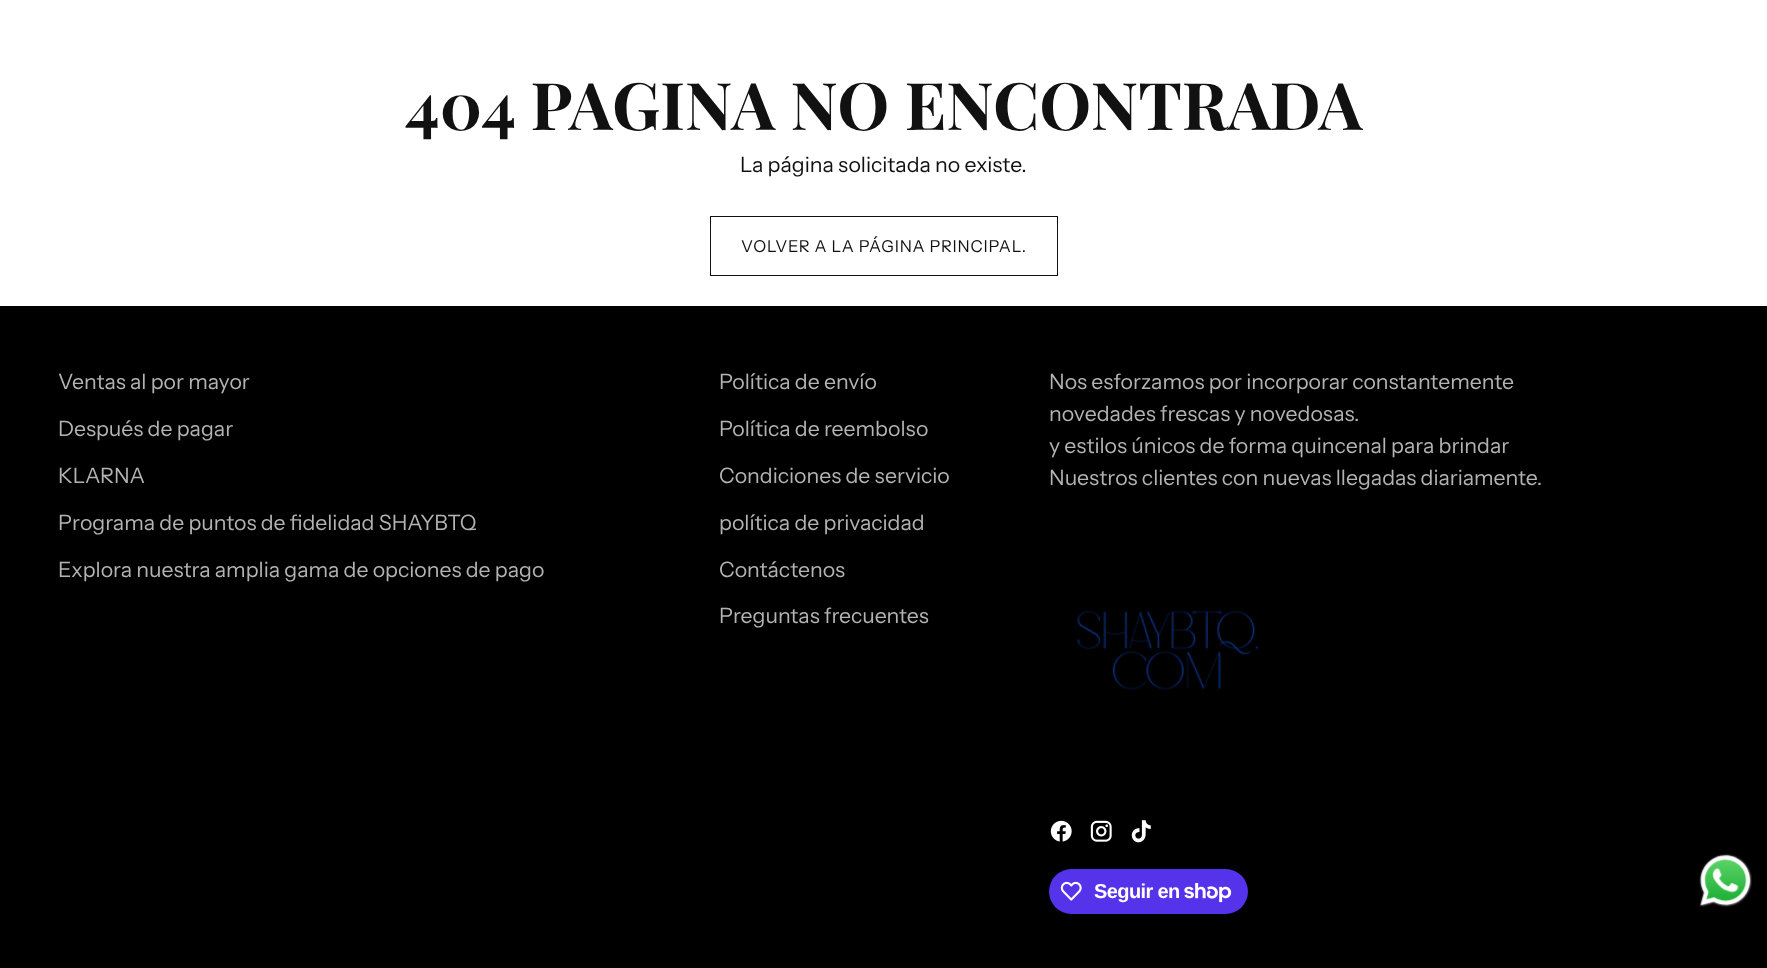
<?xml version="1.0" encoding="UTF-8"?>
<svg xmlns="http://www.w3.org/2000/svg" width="1767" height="968">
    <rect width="100%" height="100%" fill="#FFFFFF"/>
    <text x="405" y="130" font-family="Playfair Display" font-size="65.6" font-weight="700" fill="#111111">404 PAGINA NO ENCONTRADA</text>
    <text x="740" y="172" font-family="Instrument Sans" font-size="21.25" fill="#111111">La página solicitada no existe.</text>
    <rect x="710.5" y="216.5" width="347" height="59" fill="none" stroke="#111111"/>
    <text x="741" y="252" font-family="Instrument Sans" font-size="16.5" letter-spacing="0.8" fill="#111111">VOLVER A LA PÁGINA PRINCIPAL.</text>
    <rect x="0" y="306" width="1767" height="662" fill="#000000"/>
    <text x="58" y="389" font-family="Instrument Sans" font-size="21.25" fill="#B3B3B3">Ventas al por mayor</text>
    <text x="58" y="436" font-family="Instrument Sans" font-size="21.25" fill="#B3B3B3">Después de pagar</text>
    <text x="58" y="483" font-family="Instrument Sans" font-size="21.25" fill="#B3B3B3">KLARNA</text>
    <text x="58" y="530" font-family="Instrument Sans" font-size="21.25" fill="#B3B3B3">Programa de puntos de fidelidad SHAYBTQ</text>
    <text x="58" y="577" font-family="Instrument Sans" font-size="21.25" fill="#B3B3B3">Explora nuestra amplia gama de opciones de pago</text>
    <text x="719" y="389" font-family="Instrument Sans" font-size="21.25" fill="#B3B3B3">Política de envío</text>
    <text x="719" y="436" font-family="Instrument Sans" font-size="21.25" fill="#B3B3B3">Política de reembolso</text>
    <text x="719" y="483" font-family="Instrument Sans" font-size="21.25" fill="#B3B3B3">Condiciones de servicio</text>
    <text x="719" y="530" font-family="Instrument Sans" font-size="21.25" fill="#B3B3B3">política de privacidad</text>
    <text x="719" y="577" font-family="Instrument Sans" font-size="21.25" fill="#B3B3B3">Contáctenos</text>
    <text x="719" y="623" font-family="Instrument Sans" font-size="21.25" fill="#B3B3B3">Preguntas frecuentes</text>
    <text font-family="Instrument Sans" font-size="21.25" fill="#B3B3B3">
        <tspan x="1049" y="389">Nos esforzamos por incorporar constantemente</tspan>
        <tspan x="1049" y="421">novedades frescas y novedosas.</tspan>
        <tspan x="1049" y="453">y estilos únicos de forma quincenal para brindar</tspan>
        <tspan x="1049" y="485">Nuestros clientes con nuevas llegadas diariamente.</tspan>
    </text>
    <image x="1077" y="611" width="182" height="79" href="img_01.png"/>
    <image x="1050" y="820" width="22" height="22" href="img_02.png"/>
    <image x="1090" y="820" width="22" height="22" href="img_03.png"/>
    <image x="1131" y="820" width="20" height="23" href="img_04.png"/>
    <rect x="1049" y="869" width="199" height="45" rx="22.5" fill="#5433EB"/>
    <image x="1060" y="881" width="22" height="20" href="img_05.png"/>
    <text x="1094" y="898" font-family="Liberation Sans" font-size="20" font-weight="700" letter-spacing="-0.6" fill="#FFFFFF">Seguir en</text>
    <image x="1184" y="883" width="48" height="20" href="img_06.png"/>
    <image x="1699" y="853" width="53" height="54" href="img_07.png"/>
</svg>
